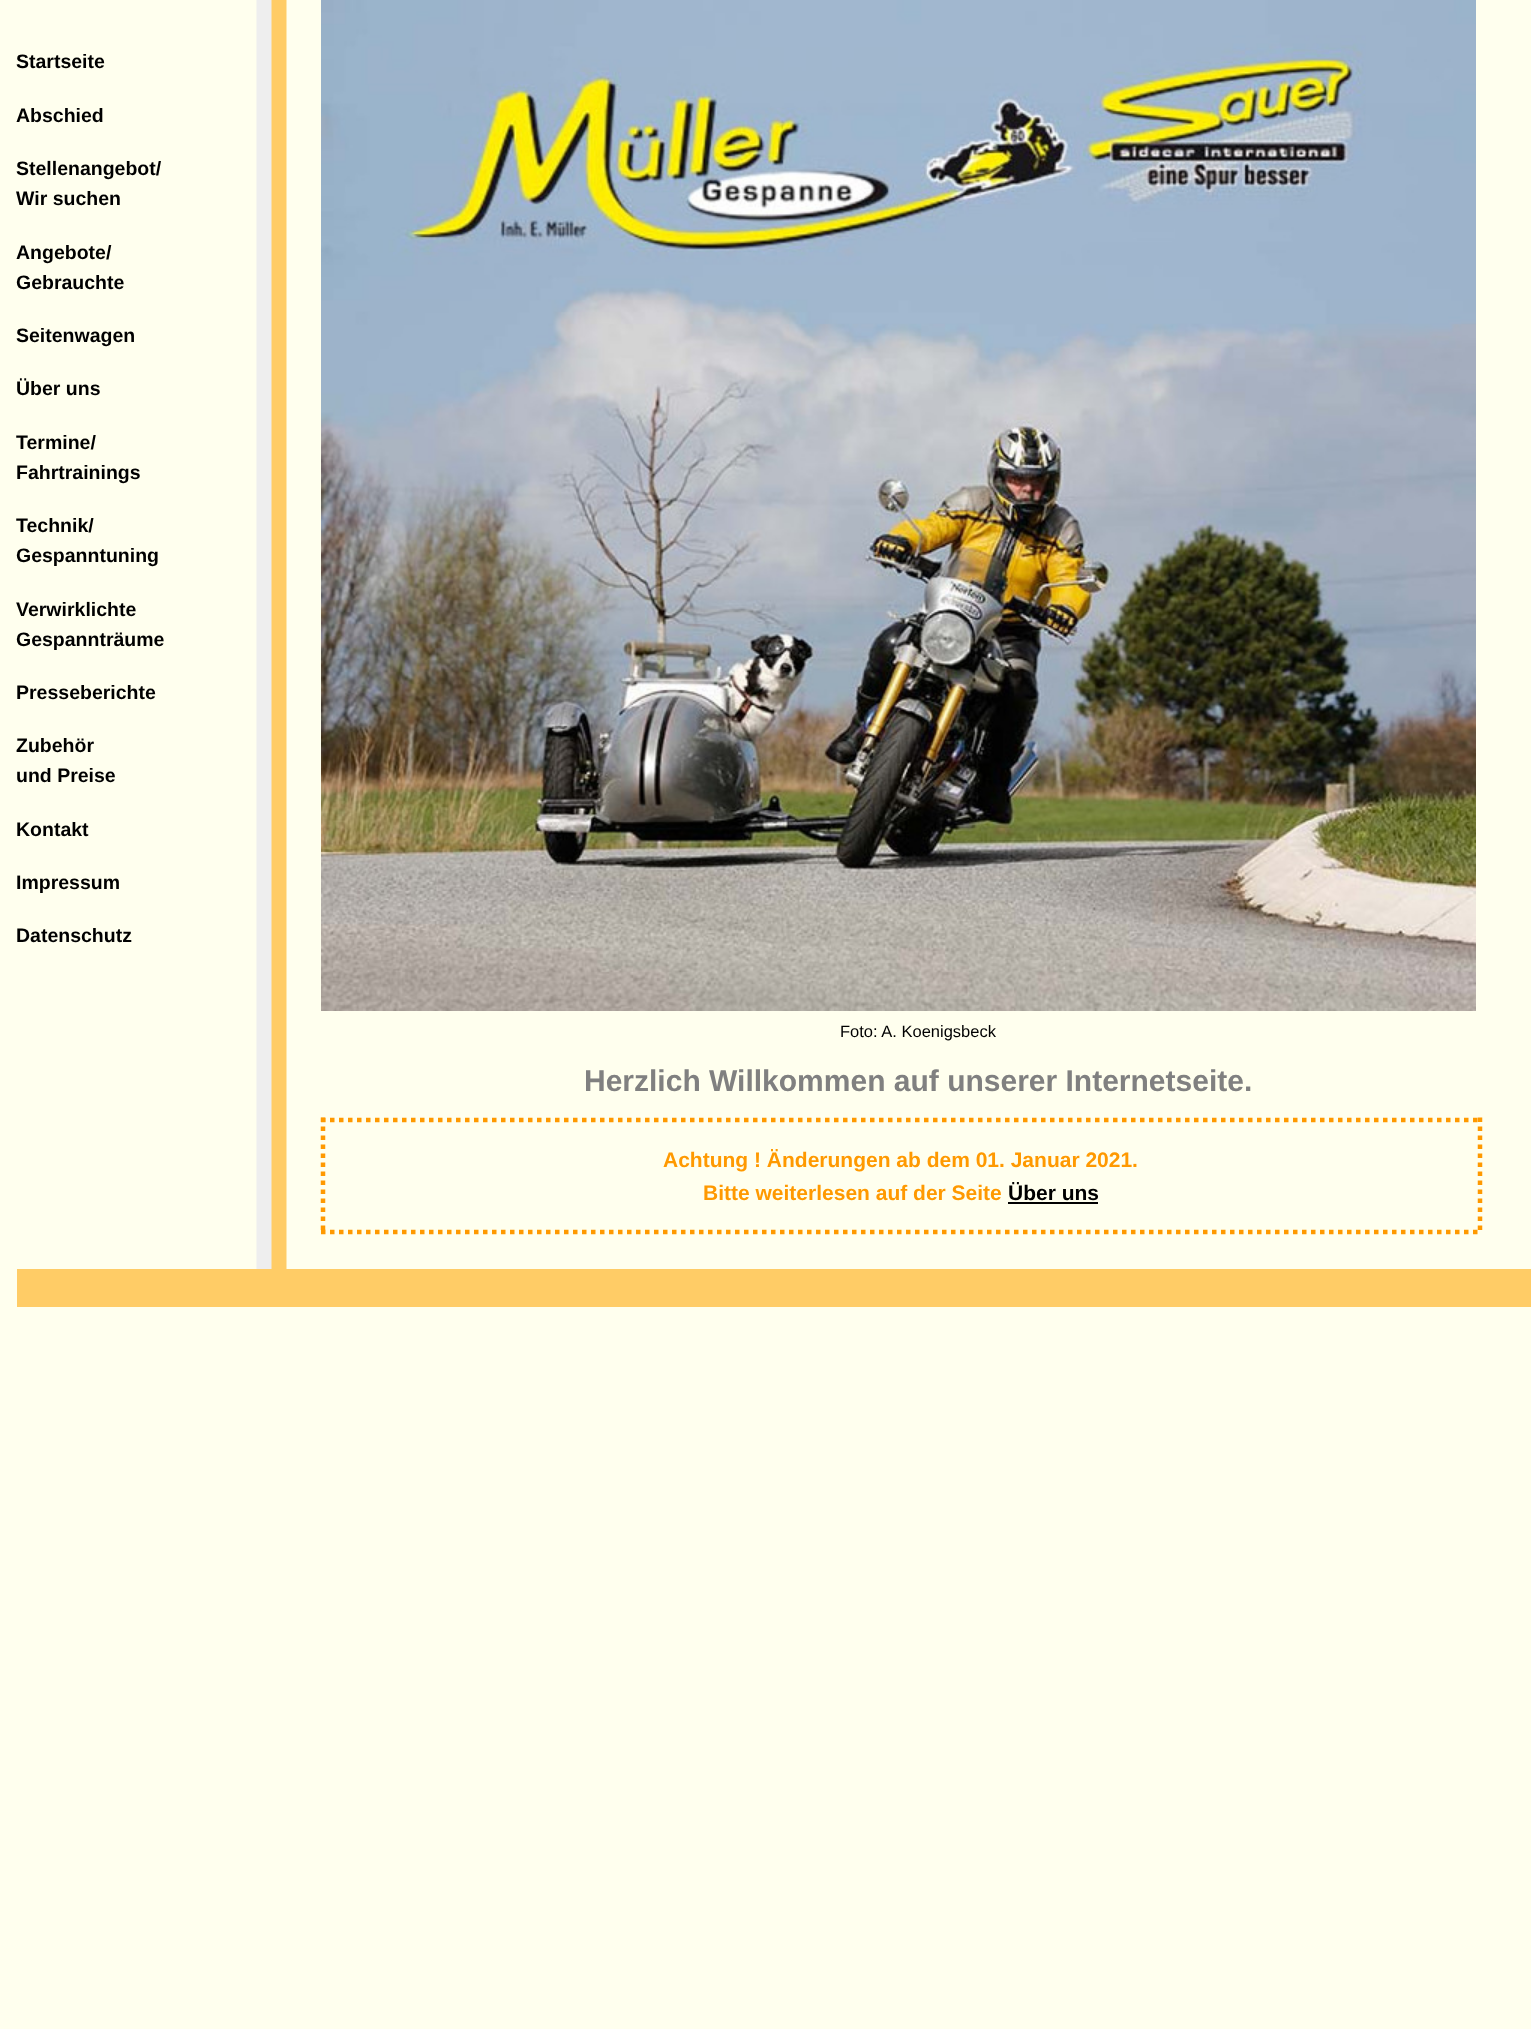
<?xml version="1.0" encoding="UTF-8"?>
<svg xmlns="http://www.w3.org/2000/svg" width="1531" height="2029">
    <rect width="100%" height="100%" fill="#FFFFEE"/>
    <image x="256" y="0" width="31" height="1269" href="img_01.png"/>
    <text x="16" y="68" font-family="Liberation Sans" font-size="19.5" font-weight="700" fill="#000000">Startseite</text>
    <text x="16" y="122" font-family="Liberation Sans" font-size="19.5" font-weight="700" fill="#000000">Abschied</text>
    <text font-family="Liberation Sans" font-size="19.5" font-weight="700" fill="#000000">
        <tspan x="16" y="175">Stellenangebot/</tspan>
        <tspan x="16" y="205">Wir suchen</tspan>
    </text>
    <text font-family="Liberation Sans" font-size="19.5" font-weight="700" fill="#000000">
        <tspan x="16" y="259">Angebote/</tspan>
        <tspan x="16" y="289">Gebrauchte</tspan>
    </text>
    <text x="16" y="342" font-family="Liberation Sans" font-size="19.5" font-weight="700" fill="#000000">Seitenwagen</text>
    <text x="16" y="395" font-family="Liberation Sans" font-size="19.5" font-weight="700" fill="#000000">Über uns</text>
    <text font-family="Liberation Sans" font-size="19.5" font-weight="700" fill="#000000">
        <tspan x="16" y="449">Termine/</tspan>
        <tspan x="16" y="479">Fahrtrainings</tspan>
    </text>
    <text font-family="Liberation Sans" font-size="19.5" font-weight="700" fill="#000000">
        <tspan x="16" y="532">Technik/</tspan>
        <tspan x="16" y="562">Gespanntuning</tspan>
    </text>
    <text font-family="Liberation Sans" font-size="19.5" font-weight="700" fill="#000000">
        <tspan x="16" y="616">Verwirklichte</tspan>
        <tspan x="16" y="646">Gespannträume</tspan>
    </text>
    <text x="16" y="699" font-family="Liberation Sans" font-size="19.5" font-weight="700" fill="#000000">Presseberichte</text>
    <text font-family="Liberation Sans" font-size="19.5" font-weight="700" fill="#000000">
        <tspan x="16" y="752">Zubehör</tspan>
        <tspan x="16" y="782">und Preise</tspan>
    </text>
    <text x="16" y="836" font-family="Liberation Sans" font-size="19.5" font-weight="700" fill="#000000">Kontakt</text>
    <text x="16" y="889" font-family="Liberation Sans" font-size="19.5" font-weight="700" fill="#000000">Impressum</text>
    <text x="16" y="942" font-family="Liberation Sans" font-size="19.5" font-weight="700" fill="#000000">Datenschutz</text>
    <image x="321" y="0" width="1155" height="1011" href="img_02.png"/>
    <text x="840" y="1037" font-family="Liberation Sans" font-size="16.5" fill="#000000">Foto: A. Koenigsbeck</text>
    <text x="584" y="1091" font-family="Liberation Sans" font-size="30" font-weight="700" fill="#808080">Herzlich Willkommen auf unserer Internetseite.</text>
    <path d="M 321 1120 H 1482" fill="none" stroke="#FF9900" stroke-width="4.5" stroke-dasharray="4.5 4.5"/>
    <path d="M 1480 1117.5 V 1234.5" fill="none" stroke="#FF9900" stroke-width="4.5" stroke-dasharray="4.5 4.5"/>
    <path d="M 321 1232 H 1482" fill="none" stroke="#FF9900" stroke-width="4.5" stroke-dasharray="4.5 4.5"/>
    <path d="M 323 1117.5 V 1234.5" fill="none" stroke="#FF9900" stroke-width="4.5" stroke-dasharray="4.5 4.5"/>
    <text x="663" y="1167" font-family="Liberation Sans" font-size="21" font-weight="700" fill="#FF9900">Achtung ! Änderungen ab dem 01. Januar 2021.</text>
    <text x="703" y="1200" font-family="Liberation Sans" font-size="21" font-weight="700" fill="#FF9900">Bitte weiterlesen auf der Seite</text>
    <text x="1008" y="1200" font-family="Liberation Sans" font-size="21" font-weight="700" fill="#000000">Über uns</text>
    <rect x="1008" y="1202" width="90" height="2" fill="#000000"/>
    <rect x="17" y="1269" width="1514" height="38" fill="#FFCC66"/>
</svg>
